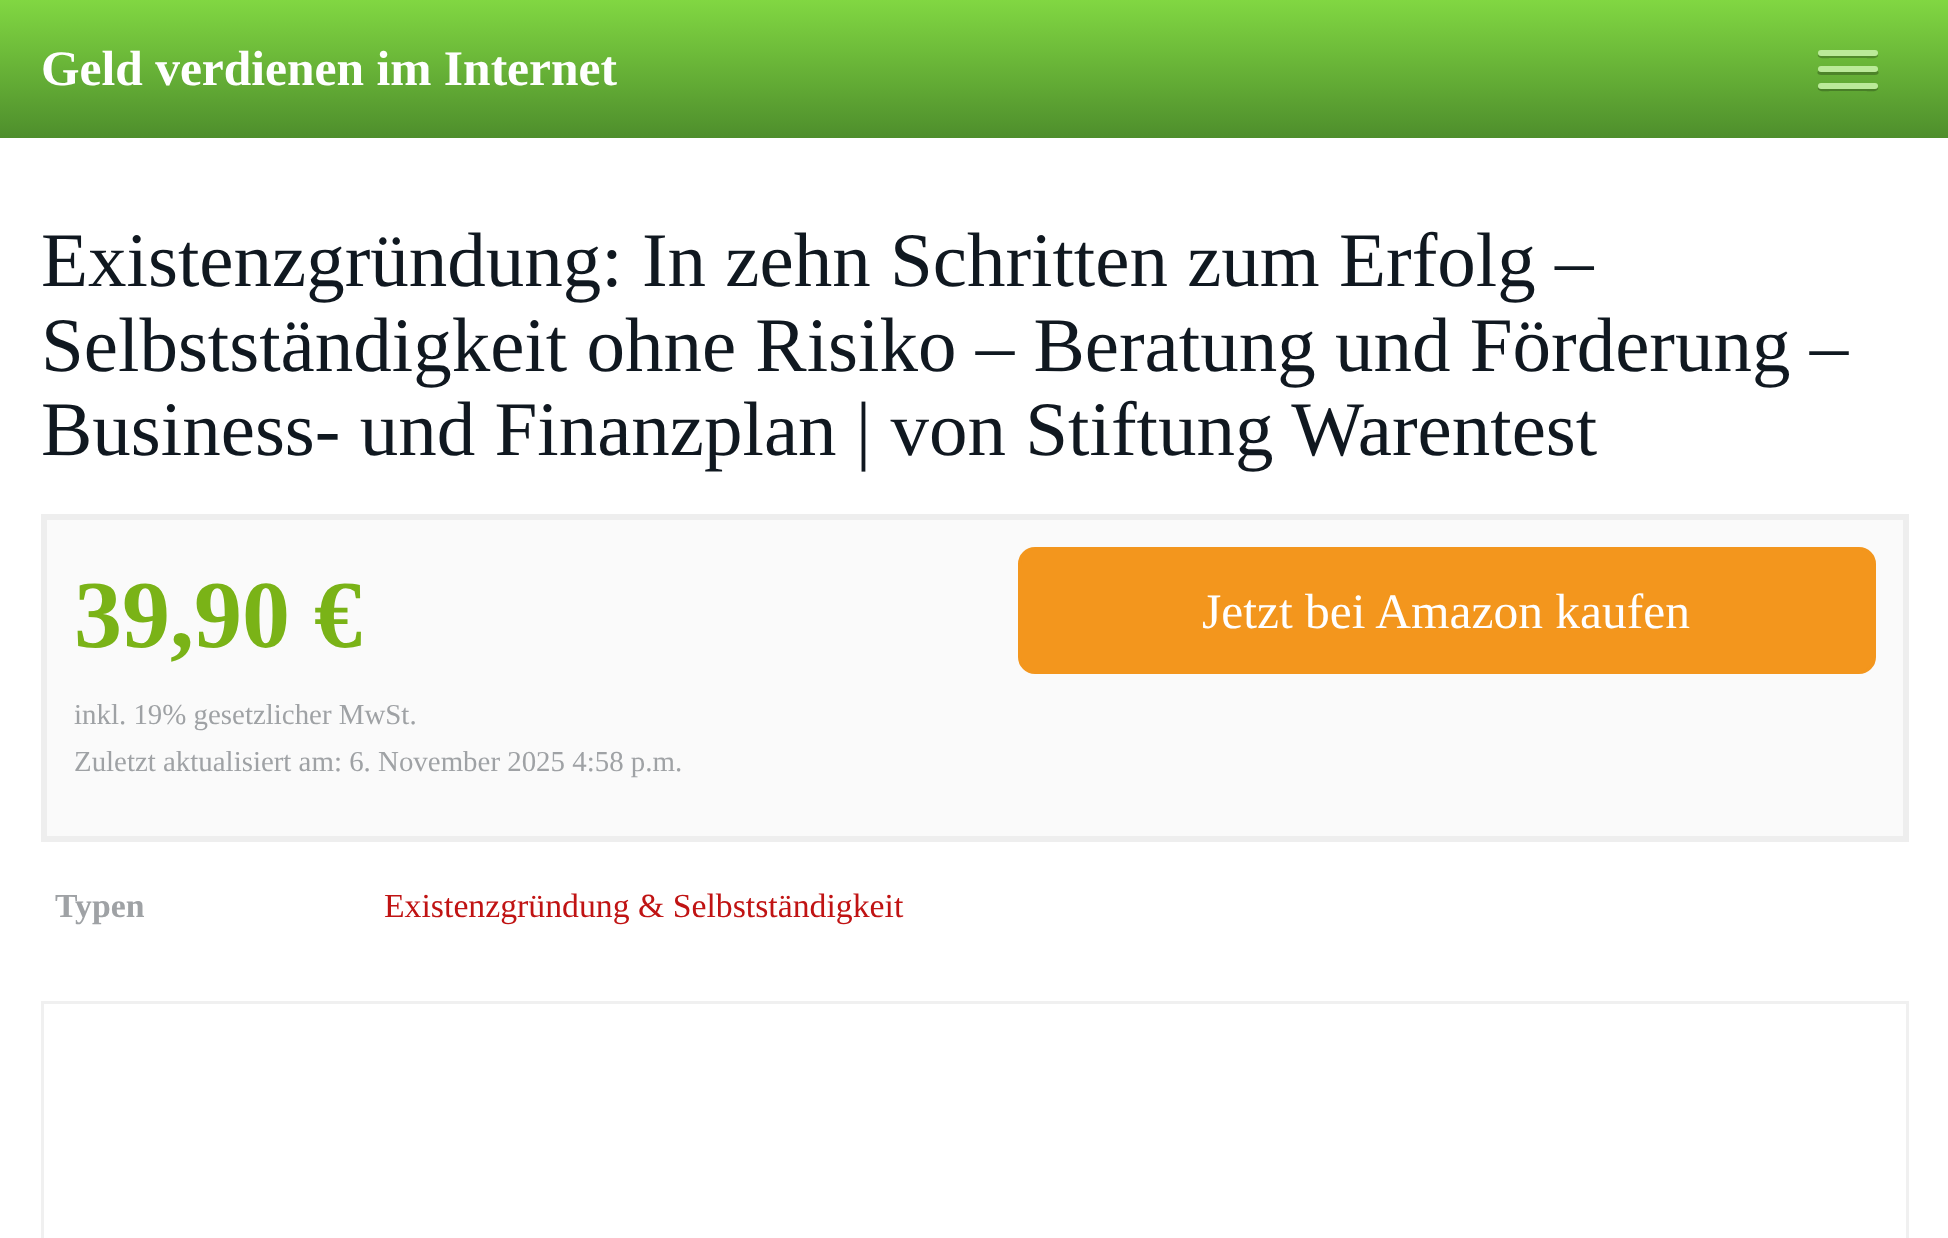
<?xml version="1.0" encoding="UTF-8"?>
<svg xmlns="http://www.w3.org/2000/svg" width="1948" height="1238">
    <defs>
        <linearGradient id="g1" gradientUnits="userSpaceOnUse" x1="975" y1="0" x2="975" y2="138"><stop offset="0" stop-color="#81D742"/><stop offset="1" stop-color="#4E8E2C"/></linearGradient>
    </defs>
    <rect width="100%" height="100%" fill="#FFFFFF"/>
    <rect x="0" y="0" width="1948" height="138" fill="url(#g1)"/>
    <text x="41" y="85" font-family="Liberation Serif" font-size="49.5" font-weight="700" fill="#FFFFFF">Geld verdienen im Internet</text>
    <path d="M 1818 54 C 1816 60 1830 58 1830 58 H 1866 C 1866 58 1880 60 1878 54 L 1876 55 H 1820 Z" fill="#518B2B"/>
    <rect x="1818" y="50" width="60" height="6" rx="3" fill="#BBEA99"/>
    <path d="M 1818 71 C 1815 76 1824 75 1830 75 H 1866 C 1872 75 1881 76 1878 71 H 1876 H 1820 Z" fill="#4D8429"/>
    <rect x="1818" y="66" width="60" height="6" rx="3" fill="#BBEA99"/>
    <path d="M 1818 87 C 1816 93 1830 91 1830 91 H 1866 C 1866 91 1880 93 1878 87 L 1876 88 H 1820 Z" fill="#487E27"/>
    <rect x="1818" y="83" width="60" height="6" rx="3" fill="#BBEA99"/>
    <text font-family="Liberation Serif" font-size="77" fill="#101820">
        <tspan x="41" y="286">Existenzgründung: In zehn Schritten zum Erfolg –</tspan>
        <tspan x="41" y="371">Selbstständigkeit ohne Risiko – Beratung und Förderung –</tspan>
        <tspan x="41" y="455">Business- und Finanzplan | von Stiftung Warentest</tspan>
    </text>
    <rect x="44" y="517" width="1862" height="322" fill="#FAFAFA" stroke="#EEEEEE" stroke-width="6"/>
    <text x="74" y="647" font-family="Liberation Serif" font-size="96" font-weight="700" fill="#7AB317">39,90 €</text>
    <text font-family="Liberation Serif" font-size="28.9" fill="#9FA2A5">
        <tspan x="74" y="724">inkl. 19% gesetzlicher MwSt.</tspan>
        <tspan x="74" y="771">Zuletzt aktualisiert am: 6. November 2025 4:58 p.m.</tspan>
    </text>
    <rect x="1019.5" y="548.5" width="855" height="124" rx="15.5" fill="#F3961D" stroke="#F3961D" stroke-width="3"/>
    <text x="1202" y="628" font-family="Liberation Serif" font-size="49.5" fill="#FFFFFF">Jetzt bei Amazon kaufen</text>
    <text x="55" y="917" font-family="Liberation Serif" font-size="33.75" font-weight="700" fill="#9FA2A5">Typen</text>
    <text x="384" y="917" font-family="Liberation Serif" font-size="33.75" fill="#C01313">Existenzgründung &amp; Selbstständigkeit</text>
    <rect x="42.5" y="1002.5" width="1865" height="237" fill="none" stroke="#F0F0F0" stroke-width="3"/>
</svg>
